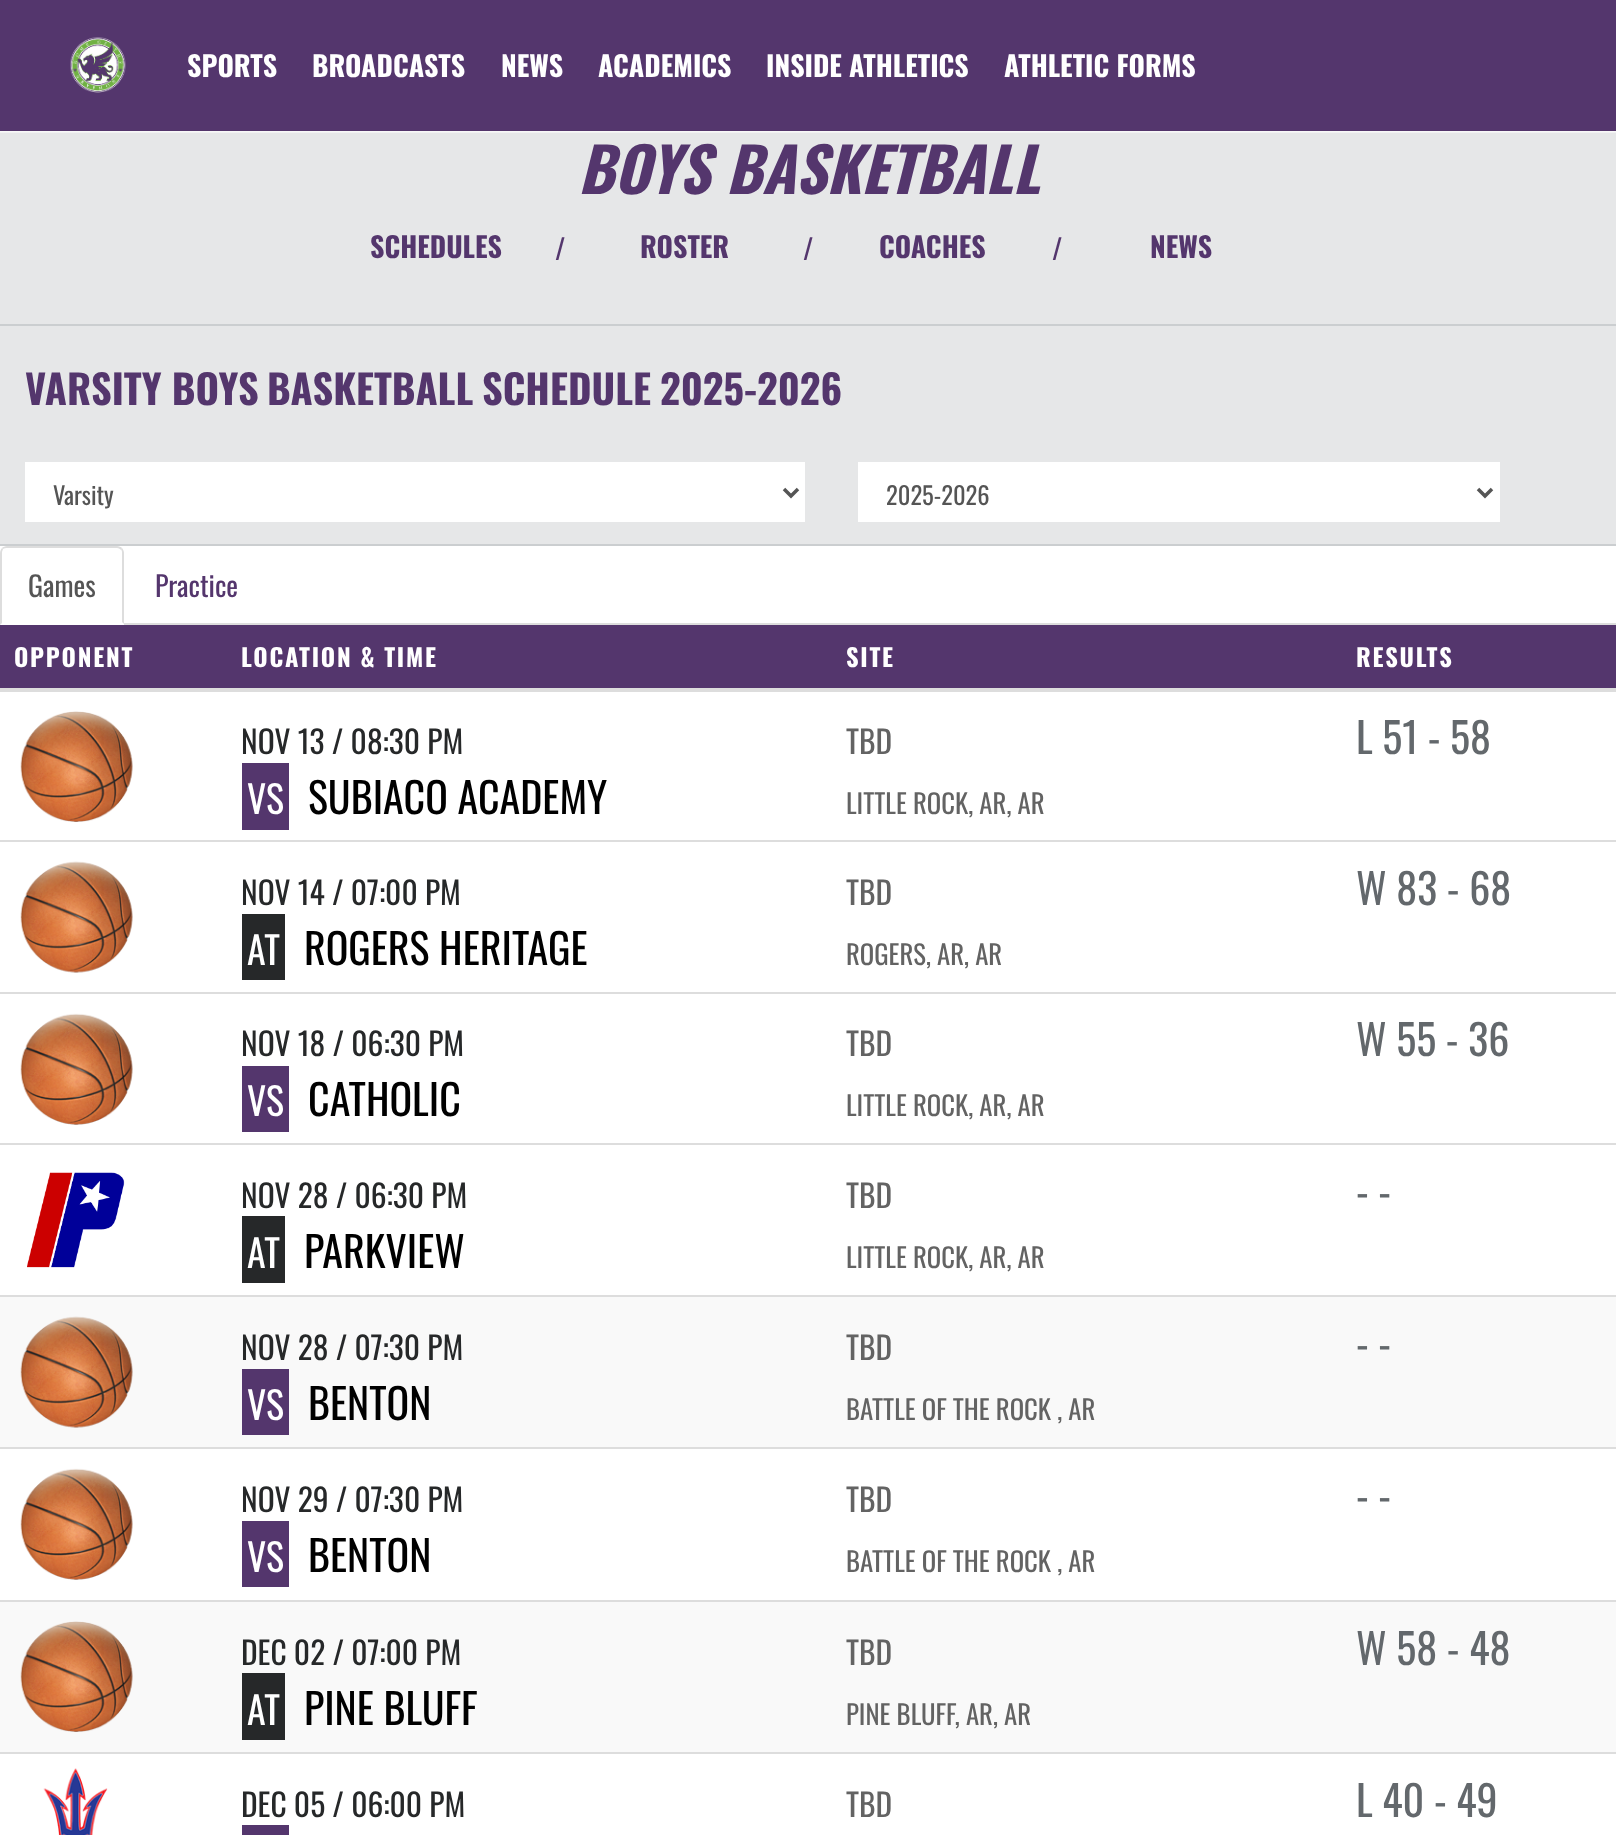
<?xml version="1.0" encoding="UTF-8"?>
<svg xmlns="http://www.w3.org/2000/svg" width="1616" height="1835">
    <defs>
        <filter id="blur1" x="-50%" y="-200%" width="200%" height="500%"><feGaussianBlur stdDeviation="3.5"/></filter>
    </defs>
    <rect width="100%" height="100%" fill="#FFFFFF"/>
    <rect x="0" y="0" width="1616" height="131" fill="#54366D"/>
    <image x="70" y="37" width="56" height="56" href="img_01.png"/>
    <text x="187" y="77" font-family="Oswald" font-size="28" font-weight="700" fill="#FFFFFF">SPORTS</text>
    <text x="312" y="77" font-family="Oswald" font-size="28" font-weight="700" fill="#FFFFFF">BROADCASTS</text>
    <text x="501" y="77" font-family="Oswald" font-size="28" font-weight="700" fill="#FFFFFF">NEWS</text>
    <text x="598" y="77" font-family="Oswald" font-size="28" font-weight="700" fill="#FFFFFF">ACADEMICS</text>
    <text x="766" y="77" font-family="Oswald" font-size="28" font-weight="700" fill="#FFFFFF">INSIDE ATHLETICS</text>
    <text x="1004" y="77" font-family="Oswald" font-size="28" font-weight="700" fill="#FFFFFF">ATHLETIC FORMS</text>
    <rect x="-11" y="137" width="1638" height="190" fill="#000000" fill-opacity="0.5" filter="url(#blur1)"/>
    <rect x="0" y="133" width="1616" height="191" fill="#E6E7E8"/>
    <text x="578" y="194" font-family="Oswald" font-size="61.25" font-weight="700" font-style="italic" fill="#54366D">BOYS BASKETBALL</text>
    <text x="370" y="258" font-family="Oswald" font-size="28" font-weight="700" fill="#54366D">SCHEDULES</text>
    <text x="555" y="260" font-family="Oswald" font-size="28" fill="#54366D">/</text>
    <text x="640" y="258" font-family="Oswald" font-size="28" font-weight="700" fill="#54366D">ROSTER</text>
    <text x="803" y="260" font-family="Oswald" font-size="28" fill="#54366D">/</text>
    <text x="879" y="258" font-family="Oswald" font-size="28" font-weight="700" fill="#54366D">COACHES</text>
    <text x="1052" y="260" font-family="Oswald" font-size="28" fill="#54366D">/</text>
    <text x="1150" y="258" font-family="Oswald" font-size="28" font-weight="700" fill="#54366D">NEWS</text>
    <rect x="-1" y="325" width="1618" height="220" fill="#E6E7E8" stroke="#CBCED0" stroke-width="2"/>
    <text x="25" y="405" font-family="Oswald" font-size="40.25" font-weight="700" fill="#54366D">VARSITY BOYS</text>
    <text x="267" y="405" font-family="Oswald" font-size="40.25" font-weight="700" fill="#54366D">BASKETBALL</text>
    <text x="482" y="405" font-family="Oswald" font-size="40.25" font-weight="700" fill="#54366D">SCHEDULE</text>
    <text x="660" y="405" font-family="Oswald" font-size="40.25" font-weight="700" fill="#54366D">2025-2026</text>
    <rect x="25" y="462" width="780" height="60" fill="#FFFFFF"/>
    <path d="M 784 489 L 791 496 L 798 489" fill="none" stroke="#555555" stroke-width="3.5"/>
    <text x="53" y="505" font-family="Oswald" font-size="24.5" fill="#555555">Varsity</text>
    <rect x="858" y="462" width="642" height="60" fill="#FFFFFF"/>
    <path d="M 1478 489 L 1485 496 L 1492 489" fill="none" stroke="#555555" stroke-width="3.5"/>
    <text x="886" y="505" font-family="Oswald" font-size="24.5" fill="#555555">2025-2026</text>
    <rect x="124" y="623" width="1492" height="2" fill="#DDDDDD"/>
    <path d="M 7 546 C 5 546 3 547 2 548 L 3 549 C 4 548 6 548 7 548 H 117 C 119 548 120 549 121 550 L 122 548 C 121 547 119 546 117 546 Z" fill="#DDDDDD"/>
    <path d="M 122 548 C 123 549 124 551 124 553 V 624 L 122 622 V 553 C 122 552 122 550 121 550 Z" fill="#DDDDDD"/>
    <path d="M 0 625 L 2 623 V 552 L 3 549 L 2 548 C 1 549 0 551 0 553 Z" fill="#DDDDDD"/>
    <text x="28" y="597" font-family="Oswald" font-size="28" fill="#555555">Games</text>
    <text x="155" y="597" font-family="Oswald" font-size="28" fill="#54366D">Practice</text>
    <rect x="0" y="625" width="1616" height="63" fill="#54366D"/>
    <text x="14" y="667" font-family="Oswald" font-size="24.5" font-weight="700" letter-spacing="1.75" fill="#FFFFFF">OPPONENT</text>
    <text x="241" y="667" font-family="Oswald" font-size="24.5" font-weight="700" letter-spacing="1.75" fill="#FFFFFF">LOCATION &amp; TIME</text>
    <text x="846" y="667" font-family="Oswald" font-size="24.5" font-weight="700" letter-spacing="1.75" fill="#FFFFFF">SITE</text>
    <rect x="0" y="688" width="1616" height="4" fill="#DDDDDD"/>
    <text x="1356" y="667" font-family="Oswald" font-size="24.5" font-weight="700" letter-spacing="1.75" fill="#FFFFFF">RESULTS</text>
    <image x="20" y="711" width="113" height="111" href="img_02.png"/>
    <text x="241" y="754" font-family="Oswald" font-size="31.5" fill="#262829">NOV 13 / 08:30 PM</text>
    <rect x="242" y="763" width="47" height="67" fill="#54366D"/>
    <text x="247" y="814" font-family="Oswald" font-size="38" fill="#FFFFFF">VS</text>
    <text x="308" y="814" font-family="Oswald" font-size="42" fill="#000000">SUBIACO ACADEMY</text>
    <text x="846" y="754" font-family="Oswald" font-size="31.5" fill="#636363">TBD</text>
    <text x="846" y="814" font-family="Oswald" font-size="26.75" fill="#636363">LITTLE ROCK, AR, AR</text>
    <text x="1356" y="754" font-family="Oswald" font-size="42" fill="#63686C">L 51 - 58</text>
    <image x="20" y="861" width="113" height="112" href="img_03.png"/>
    <text x="241" y="905" font-family="Oswald" font-size="31.5" fill="#262829">NOV 14 / 07:00 PM</text>
    <rect x="242" y="914" width="43" height="66" fill="#262829"/>
    <text x="247" y="965" font-family="Oswald" font-size="38" fill="#FFFFFF">AT</text>
    <text x="304" y="965" font-family="Oswald" font-size="42" fill="#000000">ROGERS HERITAGE</text>
    <text x="846" y="905" font-family="Oswald" font-size="31.5" fill="#636363">TBD</text>
    <text x="846" y="965" font-family="Oswald" font-size="26.75" fill="#636363">ROGERS, AR, AR</text>
    <rect x="0" y="840" width="1616" height="2" fill="#DDDDDD"/>
    <text x="1356" y="905" font-family="Oswald" font-size="42" fill="#63686C">W 83 - 68</text>
    <image x="20" y="1013" width="113" height="112" href="img_04.png"/>
    <text x="241" y="1056" font-family="Oswald" font-size="31.5" fill="#262829">NOV 18 / 06:30 PM</text>
    <rect x="242" y="1066" width="47" height="66" fill="#54366D"/>
    <text x="247" y="1116" font-family="Oswald" font-size="38" fill="#FFFFFF">VS</text>
    <text x="308" y="1116" font-family="Oswald" font-size="42" fill="#000000">CATHOLIC</text>
    <text x="846" y="1056" font-family="Oswald" font-size="31.5" fill="#636363">TBD</text>
    <text x="846" y="1116" font-family="Oswald" font-size="26.75" fill="#636363">LITTLE ROCK, AR, AR</text>
    <rect x="0" y="992" width="1616" height="2" fill="#DDDDDD"/>
    <text x="1356" y="1056" font-family="Oswald" font-size="42" fill="#63686C">W 55 - 36</text>
    <image x="27" y="1172" width="98" height="96" href="img_05.png"/>
    <text x="241" y="1208" font-family="Oswald" font-size="31.5" fill="#262829">NOV 28 / 06:30 PM</text>
    <rect x="242" y="1216" width="43" height="67" fill="#262829"/>
    <text x="247" y="1268" font-family="Oswald" font-size="38" fill="#FFFFFF">AT</text>
    <text x="304" y="1268" font-family="Oswald" font-size="42" fill="#000000">PARKVIEW</text>
    <text x="846" y="1208" font-family="Oswald" font-size="31.5" fill="#636363">TBD</text>
    <text x="846" y="1268" font-family="Oswald" font-size="26.75" fill="#636363">LITTLE ROCK, AR, AR</text>
    <rect x="0" y="1143" width="1616" height="2" fill="#DDDDDD"/>
    <text x="1356" y="1208" font-family="Oswald" font-size="42" fill="#63686C">- -</text>
    <rect x="0" y="1297" width="1616" height="150" fill="#F9F9F9"/>
    <image x="20" y="1316" width="113" height="112" href="img_06.png"/>
    <text x="241" y="1360" font-family="Oswald" font-size="31.5" fill="#262829">NOV 28 / 07:30 PM</text>
    <rect x="242" y="1369" width="47" height="66" fill="#54366D"/>
    <text x="247" y="1420" font-family="Oswald" font-size="38" fill="#FFFFFF">VS</text>
    <text x="308" y="1420" font-family="Oswald" font-size="42" fill="#000000">BENTON</text>
    <text x="846" y="1360" font-family="Oswald" font-size="31.5" fill="#636363">TBD</text>
    <text x="846" y="1420" font-family="Oswald" font-size="26.75" fill="#636363">BATTLE OF THE ROCK , AR</text>
    <rect x="0" y="1295" width="1616" height="2" fill="#DDDDDD"/>
    <text x="1356" y="1360" font-family="Oswald" font-size="42" fill="#63686C">- -</text>
    <image x="20" y="1468" width="113" height="112" href="img_04.png"/>
    <text x="241" y="1512" font-family="Oswald" font-size="31.5" fill="#262829">NOV 29 / 07:30 PM</text>
    <rect x="242" y="1521" width="47" height="66" fill="#54366D"/>
    <text x="247" y="1572" font-family="Oswald" font-size="38" fill="#FFFFFF">VS</text>
    <text x="308" y="1572" font-family="Oswald" font-size="42" fill="#000000">BENTON</text>
    <text x="846" y="1512" font-family="Oswald" font-size="31.5" fill="#636363">TBD</text>
    <text x="846" y="1572" font-family="Oswald" font-size="26.75" fill="#636363">BATTLE OF THE ROCK , AR</text>
    <rect x="0" y="1447" width="1616" height="2" fill="#DDDDDD"/>
    <text x="1356" y="1512" font-family="Oswald" font-size="42" fill="#63686C">- -</text>
    <rect x="0" y="1602" width="1616" height="150" fill="#F9F9F9"/>
    <image x="20" y="1621" width="113" height="111" href="img_07.png"/>
    <text x="241" y="1665" font-family="Oswald" font-size="31.5" fill="#262829">DEC 02 / 07:00 PM</text>
    <rect x="242" y="1673" width="43" height="67" fill="#262829"/>
    <text x="247" y="1725" font-family="Oswald" font-size="38" fill="#FFFFFF">AT</text>
    <text x="304" y="1725" font-family="Oswald" font-size="42" fill="#000000">PINE BLUFF</text>
    <text x="846" y="1665" font-family="Oswald" font-size="31.5" fill="#636363">TBD</text>
    <text x="846" y="1725" font-family="Oswald" font-size="26.75" fill="#636363">PINE BLUFF, AR, AR</text>
    <rect x="0" y="1600" width="1616" height="2" fill="#DDDDDD"/>
    <text x="1356" y="1665" font-family="Oswald" font-size="42" fill="#63686C">W 58 - 48</text>
    <image x="43" y="1768" width="65" height="67" href="img_08.png"/>
    <text x="241" y="1817" font-family="Oswald" font-size="31.5" fill="#262829">DEC 05 / 06:00 PM</text>
    <rect x="242" y="1825" width="47" height="10" fill="#54366D"/>
    <text x="846" y="1817" font-family="Oswald" font-size="31.5" fill="#636363">TBD</text>
    <rect x="0" y="1752" width="1616" height="2" fill="#DDDDDD"/>
    <text x="1356" y="1817" font-family="Oswald" font-size="42" fill="#63686C">L 40 - 49</text>
</svg>
